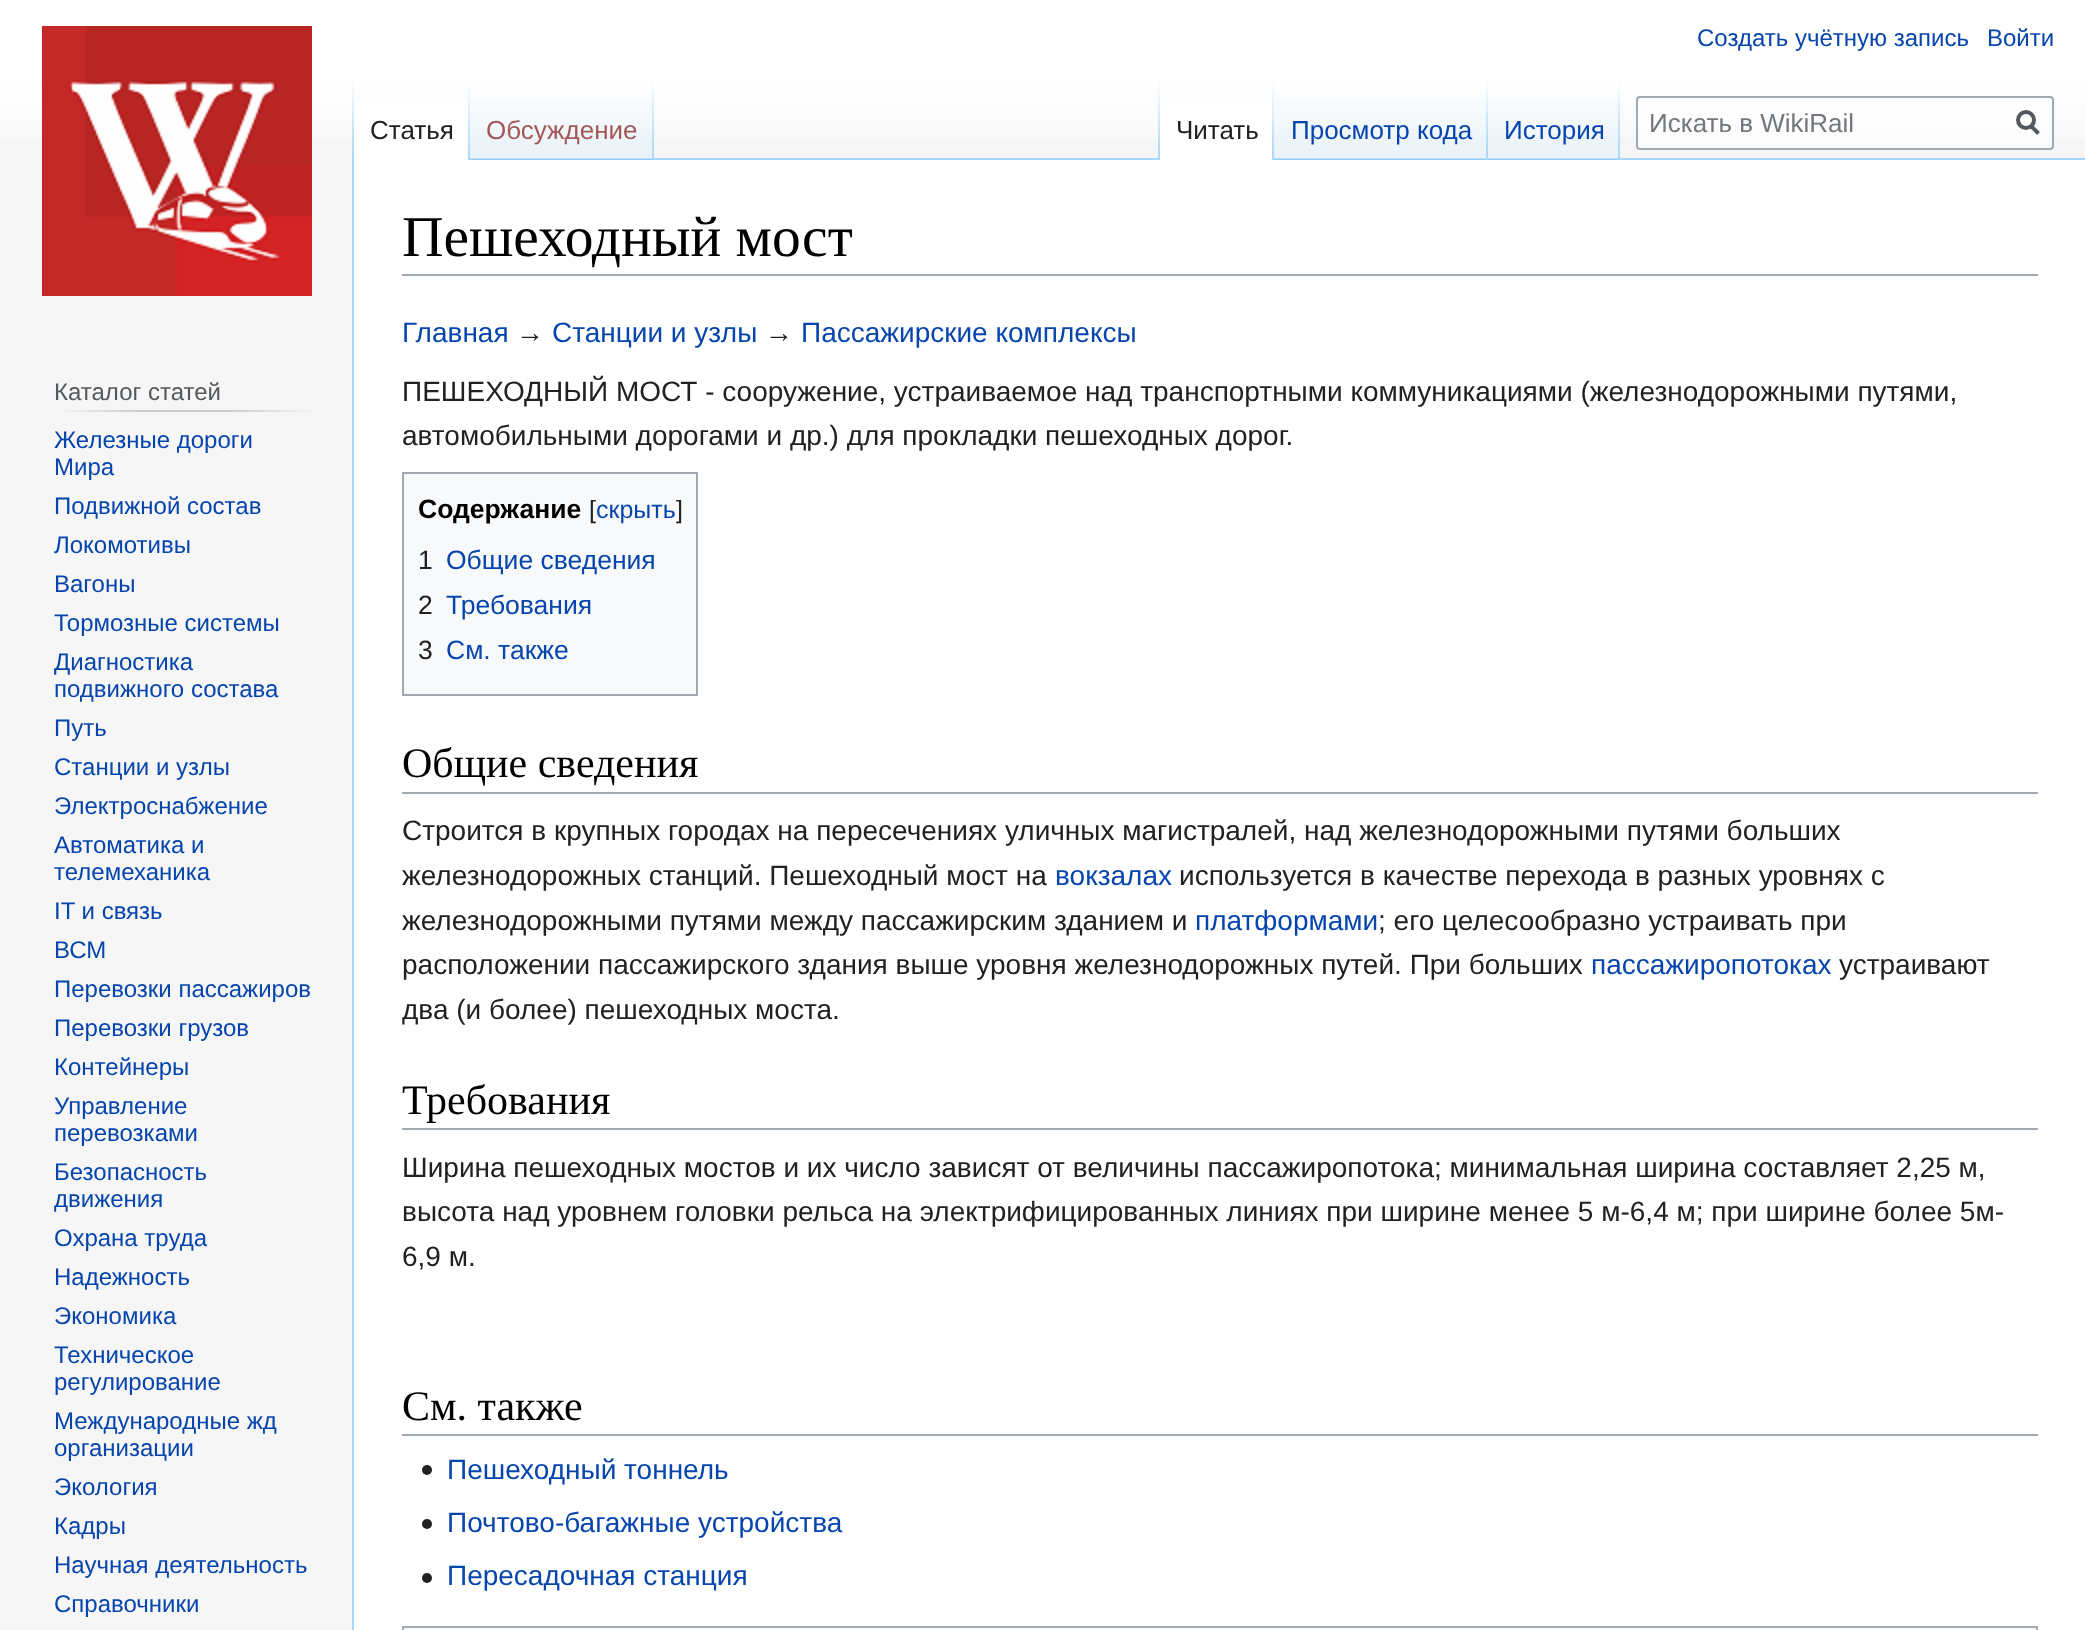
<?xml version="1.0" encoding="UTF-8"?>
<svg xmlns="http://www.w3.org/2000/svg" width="2085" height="1630">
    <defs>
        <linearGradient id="g1" gradientUnits="userSpaceOnUse" x1="1043" y1="0" x2="1043" y2="160"><stop offset="0.5" stop-color="#FFFFFF"/><stop offset="1" stop-color="#F6F6F6"/></linearGradient>
        <linearGradient id="g2" gradientUnits="userSpaceOnUse" x1="353" y1="80" x2="353" y2="160"><stop offset="0" stop-color="#A7D7F9" stop-opacity="0"/><stop offset="1" stop-color="#A7D7F9"/></linearGradient>
        <linearGradient id="g3" gradientUnits="userSpaceOnUse" x1="469" y1="80" x2="469" y2="160"><stop offset="0" stop-color="#FFFFFF"/><stop offset="1" stop-color="#A7D7F9"/></linearGradient>
        <linearGradient id="g4" gradientUnits="userSpaceOnUse" x1="562" y1="160" x2="562" y2="80"><stop offset="0" stop-color="#77C1F6"/><stop offset="0.03" stop-color="#E8F2F8"/><stop offset="1" stop-color="#FFFFFF"/></linearGradient>
        <linearGradient id="g5" gradientUnits="userSpaceOnUse" x1="653" y1="80" x2="653" y2="160"><stop offset="0" stop-color="#A7D7F9" stop-opacity="0"/><stop offset="1" stop-color="#A7D7F9"/></linearGradient>
        <linearGradient id="g6" gradientUnits="userSpaceOnUse" x1="1159" y1="80" x2="1159" y2="160"><stop offset="0" stop-color="#A7D7F9" stop-opacity="0"/><stop offset="1" stop-color="#A7D7F9"/></linearGradient>
        <linearGradient id="g7" gradientUnits="userSpaceOnUse" x1="1273" y1="80" x2="1273" y2="160"><stop offset="0" stop-color="#FFFFFF"/><stop offset="1" stop-color="#A7D7F9"/></linearGradient>
        <linearGradient id="g8" gradientUnits="userSpaceOnUse" x1="1381" y1="160" x2="1381" y2="80"><stop offset="0" stop-color="#77C1F6"/><stop offset="0.03" stop-color="#E8F2F8"/><stop offset="1" stop-color="#FFFFFF"/></linearGradient>
        <linearGradient id="g9" gradientUnits="userSpaceOnUse" x1="1487" y1="80" x2="1487" y2="160"><stop offset="0" stop-color="#A7D7F9" stop-opacity="0"/><stop offset="1" stop-color="#A7D7F9"/></linearGradient>
        <linearGradient id="g10" gradientUnits="userSpaceOnUse" x1="1554" y1="160" x2="1554" y2="80"><stop offset="0" stop-color="#77C1F6"/><stop offset="0.03" stop-color="#E8F2F8"/><stop offset="1" stop-color="#FFFFFF"/></linearGradient>
        <linearGradient id="g11" gradientUnits="userSpaceOnUse" x1="1619" y1="80" x2="1619" y2="160"><stop offset="0" stop-color="#A7D7F9" stop-opacity="0"/><stop offset="1" stop-color="#A7D7F9"/></linearGradient>
        <linearGradient id="g12" gradientUnits="userSpaceOnUse" x1="54" y1="411" x2="316" y2="411"><stop offset="0" stop-color="#F6F6F6"/><stop offset="0.33" stop-color="#C8CCD1"/><stop offset="0.66" stop-color="#C8CCD1"/><stop offset="1" stop-color="#F6F6F6"/></linearGradient>
    </defs>
    <rect width="100%" height="100%" fill="#F6F6F6"/>
    <rect x="0" y="0" width="2085" height="138" fill="url(#g1)"/>
    <text x="1697" y="46" font-family="Liberation Sans" font-size="24" fill="#0645AD">Создать учётную запись</text>
    <text x="1987" y="46" font-family="Liberation Sans" font-size="24" fill="#0645AD">Войти</text>
    <rect x="352" y="158" width="2" height="1472" fill="#A7D7F9"/>
    <rect x="352" y="80" width="2" height="80" fill="url(#g2)"/>
    <rect x="354" y="102" width="114" height="58" fill="#FFFFFF"/>
    <rect x="468" y="80" width="2" height="80" fill="url(#g3)"/>
    <text x="370" y="139" font-family="Liberation Sans" font-size="26" fill="#202122">Статья</text>
    <rect x="470" y="92" width="184" height="68" fill="url(#g4)"/>
    <rect x="652" y="80" width="2" height="80" fill="url(#g5)"/>
    <text x="486" y="139" font-family="Liberation Sans" font-size="26" fill="#A55858">Обсуждение</text>
    <rect x="654" y="158" width="1431" height="2" fill="#A7D7F9"/>
    <rect x="1158" y="80" width="2" height="80" fill="url(#g6)"/>
    <rect x="1160" y="102" width="112" height="58" fill="#FFFFFF"/>
    <rect x="1272" y="80" width="2" height="80" fill="url(#g7)"/>
    <text x="1176" y="139" font-family="Liberation Sans" font-size="26" fill="#202122">Читать</text>
    <rect x="1274" y="92" width="214" height="68" fill="url(#g8)"/>
    <rect x="1486" y="80" width="2" height="80" fill="url(#g9)"/>
    <text x="1291" y="139" font-family="Liberation Sans" font-size="26" fill="#0645AD">Просмотр кода</text>
    <rect x="1488" y="92" width="132" height="68" fill="url(#g10)"/>
    <rect x="1618" y="80" width="2" height="80" fill="url(#g11)"/>
    <text x="1504" y="139" font-family="Liberation Sans" font-size="26" fill="#0645AD">История</text>
    <rect x="1637" y="97" width="416" height="52" rx="3" fill="#FFFFFF" fill-opacity="0.5" stroke="#A2A9B1" stroke-width="2"/>
    <text x="1649" y="132" font-family="Liberation Sans" font-size="26" fill="#72777D">Искать в WikiRail</text>
    <path d="M 2038.5 133.5 L 2030.5 125.5" fill="none" stroke="#54595D" stroke-width="4"/>
    <circle cx="2026" cy="120" r="8" fill="none" stroke="#54595D" stroke-width="4"/>
    <image x="42" y="26" width="270" height="270" href="img_01.png"/>
    <rect x="54" y="410" width="262" height="2" fill="url(#g12)"/>
    <text x="54" y="400" font-family="Liberation Sans" font-size="24" fill="#54595D">Каталог статей</text>
    <text font-family="Liberation Sans" font-size="24" fill="#0645AD">
        <tspan x="54" y="448">Железные дороги</tspan>
        <tspan x="54" y="475">Мира</tspan>
        <tspan x="54" y="514">Подвижной состав</tspan>
        <tspan x="54" y="553">Локомотивы</tspan>
        <tspan x="54" y="592">Вагоны</tspan>
        <tspan x="54" y="631">Тормозные системы</tspan>
        <tspan x="54" y="670">Диагностика</tspan>
        <tspan x="54" y="697">подвижного состава</tspan>
        <tspan x="54" y="736">Путь</tspan>
        <tspan x="54" y="775">Станции и узлы</tspan>
        <tspan x="54" y="814">Электроснабжение</tspan>
        <tspan x="54" y="853">Автоматика и</tspan>
        <tspan x="54" y="880">телемеханика</tspan>
        <tspan x="54" y="919">IT и связь</tspan>
        <tspan x="54" y="958">ВСМ</tspan>
        <tspan x="54" y="997">Перевозки пассажиров</tspan>
        <tspan x="54" y="1036">Перевозки грузов</tspan>
        <tspan x="54" y="1075">Контейнеры</tspan>
        <tspan x="54" y="1114">Управление</tspan>
        <tspan x="54" y="1141">перевозками</tspan>
        <tspan x="54" y="1180">Безопасность</tspan>
        <tspan x="54" y="1207">движения</tspan>
        <tspan x="54" y="1246">Охрана труда</tspan>
        <tspan x="54" y="1285">Надежность</tspan>
        <tspan x="54" y="1324">Экономика</tspan>
        <tspan x="54" y="1363">Техническое</tspan>
        <tspan x="54" y="1390">регулирование</tspan>
        <tspan x="54" y="1429">Международные жд</tspan>
        <tspan x="54" y="1456">организации</tspan>
        <tspan x="54" y="1495">Экология</tspan>
        <tspan x="54" y="1534">Кадры</tspan>
        <tspan x="54" y="1573">Научная деятельность</tspan>
        <tspan x="54" y="1612">Справочники</tspan>
    </text>
    <rect x="354" y="160" width="1731" height="1470" fill="#FFFFFF"/>
    <rect x="402" y="274" width="1636" height="2" fill="#A2A9B1"/>
    <text x="402" y="256" font-family="Liberation Serif" font-size="57.5" fill="#000000">Пешеходный мост</text>
    <text x="402" y="342" font-family="Liberation Sans" font-size="28" fill="#0645AD">Главная</text>
    <text x="516" y="342" font-family="Liberation Sans" font-size="28" fill="#202122">→</text>
    <text x="552" y="342" font-family="Liberation Sans" font-size="28" fill="#0645AD">Станции и узлы</text>
    <text x="765" y="342" font-family="Liberation Sans" font-size="28" fill="#202122">→</text>
    <text x="801" y="342" font-family="Liberation Sans" font-size="28" fill="#0645AD">Пассажирские комплексы</text>
    <text font-family="Liberation Sans" font-size="28" fill="#202122">
        <tspan x="402" y="401">ПЕШЕХОДНЫЙ МОСТ - сооружение, устраиваемое над транспортными коммуникациями (железнодорожными путями,</tspan>
        <tspan x="402" y="445">автомобильными дорогами и др.) для прокладки пешеходных дорог.</tspan>
    </text>
    <rect x="403" y="473" width="294" height="222" fill="#F8F9FA" stroke="#A2A9B1" stroke-width="2"/>
    <text x="418" y="518" font-family="Liberation Sans" font-size="26.5" font-weight="700" fill="#000000">Содержание</text>
    <text x="589" y="518" font-family="Liberation Sans" font-size="25" fill="#202122">[</text>
    <text x="596" y="518" font-family="Liberation Sans" font-size="25" fill="#0645AD">скрыть</text>
    <text x="676" y="518" font-family="Liberation Sans" font-size="25" fill="#202122">]</text>
    <text x="418" y="569" font-family="Liberation Sans" font-size="26.5" fill="#202122">1</text>
    <text x="446" y="569" font-family="Liberation Sans" font-size="26.5" fill="#0645AD">Общие сведения</text>
    <text x="418" y="614" font-family="Liberation Sans" font-size="26.5" fill="#202122">2</text>
    <text x="446" y="614" font-family="Liberation Sans" font-size="26.5" fill="#0645AD">Требования</text>
    <text x="418" y="659" font-family="Liberation Sans" font-size="26.5" fill="#202122">3</text>
    <text x="446" y="659" font-family="Liberation Sans" font-size="26.5" fill="#0645AD">См. также</text>
    <rect x="402" y="792" width="1636" height="2" fill="#A2A9B1"/>
    <text x="402" y="777" font-family="Liberation Serif" font-size="42" fill="#000000">Общие сведения</text>
    <text font-family="Liberation Sans" font-size="28" fill="#202122">
        <tspan x="402" y="840">Строится в крупных городах на пересечениях уличных магистралей, над железнодорожными путями больших</tspan>
        <tspan x="402" y="885">железнодорожных станций. Пешеходный мост на</tspan>
    </text>
    <text x="1055" y="885" font-family="Liberation Sans" font-size="28" fill="#0645AD">вокзалах</text>
    <text x="1179" y="885" font-family="Liberation Sans" font-size="28" fill="#202122">используется в качестве перехода в разных уровнях с</text>
    <text x="402" y="930" font-family="Liberation Sans" font-size="28" fill="#202122">железнодорожными путями между пассажирским зданием и</text>
    <text x="1195" y="930" font-family="Liberation Sans" font-size="28" fill="#0645AD">платформами</text>
    <text x="1378" y="930" font-family="Liberation Sans" font-size="28" fill="#202122">; его целесообразно устраивать при</text>
    <text x="402" y="974" font-family="Liberation Sans" font-size="28" fill="#202122">расположении пассажирского здания выше уровня железнодорожных путей. При больших</text>
    <text x="1591" y="974" font-family="Liberation Sans" font-size="28" fill="#0645AD">пассажиропотоках</text>
    <text x="1839" y="974" font-family="Liberation Sans" font-size="28" fill="#202122">устраивают</text>
    <text x="402" y="1019" font-family="Liberation Sans" font-size="28" fill="#202122">два (и более) пешеходных моста.</text>
    <rect x="402" y="1128" width="1636" height="2" fill="#A2A9B1"/>
    <text x="402" y="1114" font-family="Liberation Serif" font-size="42" fill="#000000">Требования</text>
    <text font-family="Liberation Sans" font-size="28" fill="#202122">
        <tspan x="402" y="1177">Ширина пешеходных мостов и их число зависят от величины пассажиропотока; минимальная ширина составляет 2,25 м,</tspan>
        <tspan x="402" y="1221">высота над уровнем головки рельса на электрифицированных линиях при ширине менее 5 м-6,4 м; при ширине более 5м-</tspan>
        <tspan x="402" y="1266">6,9 м.</tspan>
    </text>
    <rect x="402" y="1434" width="1636" height="2" fill="#A2A9B1"/>
    <text x="402" y="1420" font-family="Liberation Serif" font-size="42" fill="#000000">См. также</text>
    <image x="422" y="1465" width="10" height="10" href="img_02.png"/>
    <text x="447" y="1479" font-family="Liberation Sans" font-size="28" fill="#0645AD">Пешеходный тоннель</text>
    <image x="422" y="1519" width="10" height="10" href="img_03.png"/>
    <text x="447" y="1532" font-family="Liberation Sans" font-size="28" fill="#0645AD">Почтово-багажные устройства</text>
    <image x="422" y="1573" width="10" height="10" href="img_02.png"/>
    <text x="447" y="1585" font-family="Liberation Sans" font-size="28" fill="#0645AD">Пересадочная станция</text>
    <rect x="403" y="1627" width="1634" height="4" fill="#F8F9FA" stroke="#A2A9B1" stroke-width="2"/>
</svg>
